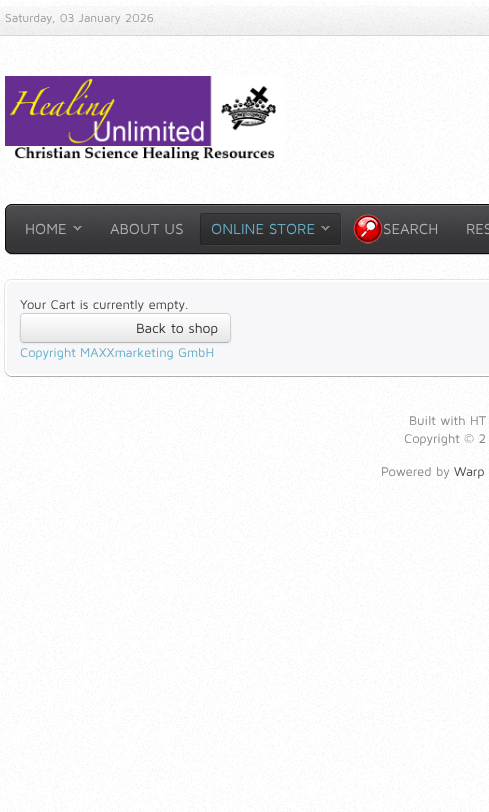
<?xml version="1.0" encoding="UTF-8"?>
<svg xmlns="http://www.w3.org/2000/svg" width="489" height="812">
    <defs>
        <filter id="blur1" x="-50%" y="-200%" width="200%" height="500%"><feGaussianBlur stdDeviation="0.5"/></filter>
        <filter id="blur2" x="-50%" y="-200%" width="200%" height="500%"><feGaussianBlur stdDeviation="1"/></filter>
        <clipPath id="clip1"><rect x="20" y="313" width="211" height="30" rx="4"/></clipPath>
        <linearGradient id="g1" gradientUnits="userSpaceOnUse" x1="126" y1="314" x2="126" y2="342"><stop offset="0" stop-color="#FFFFFF"/><stop offset="1" stop-color="#E6E6E6"/></linearGradient>
    </defs>
    <rect width="100%" height="100%" fill="#FFFFFF"/>
    <image x="0" y="1" width="489" height="811" href="img_01.png"/>
    <rect x="17" y="36" width="472" height="1" fill="#FDFDFF" fill-opacity="0.5"/>
    <image x="0" y="6" width="489" height="30" href="img_02.png"/>
    <rect x="0" y="35" width="489" height="1" fill="#000002" fill-opacity="0.1"/>
    <text x="5" y="22" font-family="Maven Pro" font-size="12" fill="#99999B">Saturday, 03 January 2026</text>
    <image x="5" y="76" width="280" height="84" href="img_03.png"/>
    <rect x="5" y="205" width="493" height="50" rx="7" fill="#000002" fill-opacity="0.2" filter="url(#blur1)"/>
    <rect x="5" y="204" width="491" height="50" rx="7" fill="#363638"/>
    <image x="5" y="205" width="484" height="45" href="img_04.png"/>
    <path d="M 12 206 H 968 C 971 206 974 209 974 212 V 211 C 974 208 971 205 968 205 H 12 C 9 205 6 208 6 211 V 212 C 6 209 9 206 12 206 Z" fill="#707072"/>
    <rect x="5.5" y="204.5" width="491" height="49" rx="6.5" fill="none" stroke="#000002" stroke-opacity="0.8"/>
    <image x="73" y="226" width="9" height="6" href="img_05.png"/>
    <text x="25" y="234" font-family="Maven Pro" font-size="15" fill="#B1B1B3">HOME</text>
    <text x="110" y="234" font-family="Maven Pro" font-size="15" fill="#B1B1B3">ABOUT US</text>
    <path d="M 202 244 C 202 245 204 246 205 246 H 338 C 340 246 342 244 342 242 V 218 C 342 217 341 215 340 215 L 341 217 V 241 C 341 243 339 245 337 245 H 204 Z" fill="#FDFDFF" fill-opacity="0.05"/>
    <rect x="200" y="213" width="141" height="32" fill="#000000" fill-opacity="0.2"/>
    <path d="M 339.5 214.5 C 341.5 217 340.5 226 340.5 229 V 237 C 340.5 239.5 341 244.5 337 244.5 H 204 L 201.5 243.5" fill="none" stroke="#000002" stroke-opacity="0.12"/>
    <path d="M 201.5 243.5 C 199.5 241 200.5 232 200.5 229 V 221 C 200.5 218.5 200 213.5 204 213.5 H 337 L 339.5 214.5" fill="none" stroke="#000002" stroke-opacity="0.25"/>
    <image x="321" y="226" width="9" height="6" href="img_06.png"/>
    <text x="211" y="234" font-family="Maven Pro" font-size="15" fill="#65ADC5">ONLINE STORE</text>
    <image x="353" y="214" width="30" height="30" href="img_07.png"/>
    <text x="383" y="234" font-family="Maven Pro" font-size="15" fill="#B1B1B3">SEARCH</text>
    <text x="466" y="234" font-family="Maven Pro" font-size="15" fill="#B1B1B3">RES</text>
    <rect x="5" y="281" width="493" height="96" rx="7" fill="#000002" fill-opacity="0.1" filter="url(#blur1)"/>
    <path d="M 5 369 V 370 C 5 374 8 377 12 377 H 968 C 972 377 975 374 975 370 V 369 C 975 373 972 376 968 376 H 12 C 8 376 5 373 5 369 Z" fill="#000002" fill-opacity="0.15"/>
    <rect x="4.5" y="279.5" width="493" height="97" rx="7.5" fill="none" stroke="#000002" stroke-opacity="0.1"/>
    <rect x="6" y="281" width="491" height="94" rx="6" fill="#F7F7F9" stroke="#FFFFFF" stroke-width="2"/>
    <rect x="20" y="314" width="211" height="30" rx="4" fill="#000000" fill-opacity="0.05" filter="url(#blur2)"/>
    <text x="20" y="309" font-family="Maven Pro" font-size="13" fill="#444446">Your Cart is currently empty.</text>
    <g clip-path="url(#clip1)">
        <rect x="20" y="314" width="211" height="28" fill="url(#g1)"/>
    </g>
    <path d="M 229.5 341.5 C 229 342 228 342.5 227 342.5 H 24 C 23 342.5 22 342 21.5 341.5" fill="none" stroke="#B3B3B3"/>
    <path d="M 21.5 341.5 C 19.5 339.5 20.5 331 20.5 328 V 320.5 C 20.5 318 20 313.5 24 313.5 H 227 C 231 313.5 230.5 318 230.5 320.5 V 328 C 230.5 331 231.5 339.5 229.5 341.5" fill="none" stroke="#CCCCCC"/>
    <text x="136" y="333" font-family="Maven Pro" font-size="14" fill="#333333">Back to shop</text>
    <text x="20" y="357" font-family="Maven Pro" font-size="13" fill="#65ADC5">Copyright MAXXmarketing GmbH</text>
    <text x="409" y="425" font-family="Maven Pro" font-size="13" fill="#87878B">Built with HT</text>
    <text x="404" y="443" font-family="Maven Pro" font-size="13" fill="#87878B">Copyright © 2</text>
    <text x="381" y="476" font-family="Maven Pro" font-size="13" fill="#87878B">Powered by</text>
    <text x="454" y="476" font-family="Maven Pro" font-size="13" fill="#444446">Warp</text>
</svg>
